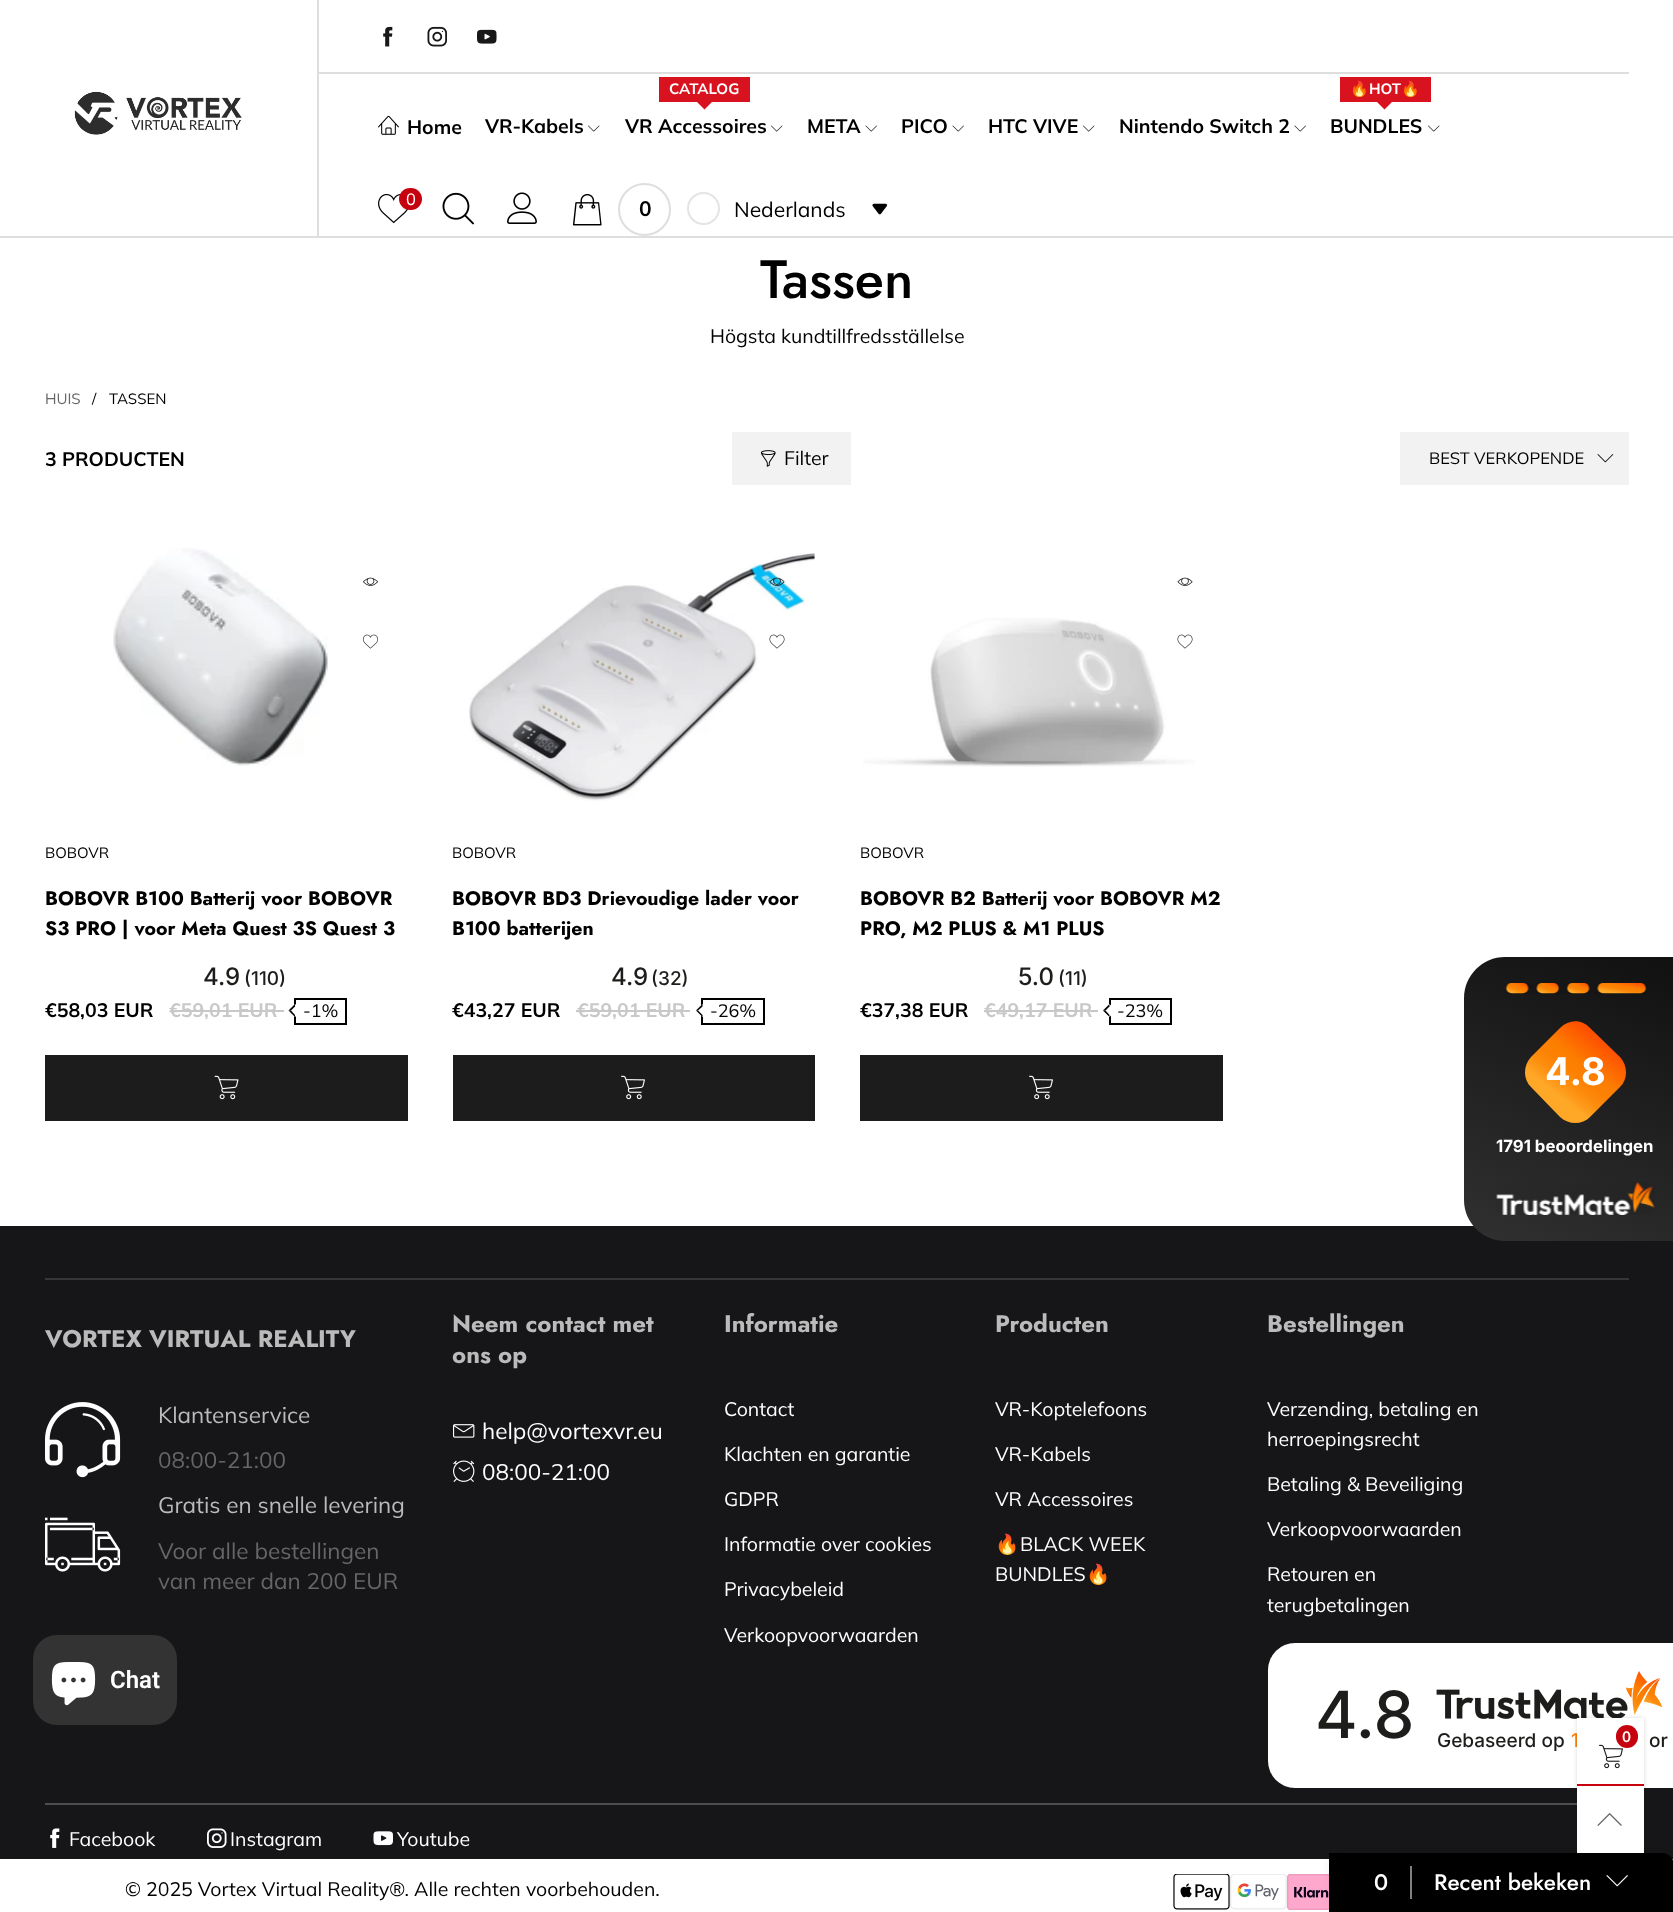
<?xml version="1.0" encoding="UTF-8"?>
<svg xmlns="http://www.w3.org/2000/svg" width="1673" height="1912">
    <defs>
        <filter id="blur1" x="-50%" y="-200%" width="200%" height="500%"><feGaussianBlur stdDeviation="4"/></filter>
        <linearGradient id="g1" gradientUnits="userSpaceOnUse" x1="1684" y1="1331" x2="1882" y2="849"><stop offset="0.03" stop-color="#2F2F2F"/><stop offset="1" stop-color="#000000"/></linearGradient>
        <linearGradient id="g2" gradientUnits="userSpaceOnUse" x1="1546" y1="1109" x2="1604" y2="1036"><stop offset="0.2" stop-color="#FFA727"/><stop offset="0.24" stop-color="#FE9F20"/><stop offset="0.36" stop-color="#FD8D0E"/><stop offset="0.49" stop-color="#FC8103"/><stop offset="0.62" stop-color="#FC7E00"/><stop offset="1" stop-color="#FF4800"/></linearGradient>
        <filter id="blur2" x="-50%" y="-200%" width="200%" height="500%"><feGaussianBlur stdDeviation="2"/></filter>
    </defs>
    <rect width="100%" height="100%" fill="#FFFFFF"/>
    <rect x="0" y="236" width="1673" height="2" fill="#DEDEDE"/>
    <image x="74" y="91" width="168" height="44" href="img_01.png"/>
    <rect x="317" y="0" width="2" height="236" fill="#DEDEDE"/>
    <rect x="318" y="72" width="1311" height="2" fill="#DEDEDE"/>
    <image x="383" y="26" width="10" height="21" href="img_02.png"/>
    <image x="427" y="26" width="20" height="21" href="img_03.png"/>
    <image x="477" y="29" width="20" height="15" href="img_04.png"/>
    <image x="378" y="115" width="21" height="20" href="img_05.png"/>
    <text x="407" y="134" font-family="Muli" font-size="19.5" font-weight="700" fill="#000000">Home</text>
    <text x="485" y="133" font-family="Muli" font-size="19.5" font-weight="700" fill="#000000">VR-Kabels</text>
    <image x="588" y="125" width="12" height="7" href="img_06.png"/>
    <rect x="659" y="77" width="91" height="25" fill="#D9121F"/>
    <text x="669" y="94" font-family="Muli" font-size="15" font-weight="700" fill="#FFFFFF">CATALOG</text>
    <path d="M 697 102 H 712 L 704.5 109.5 Z" fill="#D9121F"/>
    <text x="625" y="133" font-family="Muli" font-size="19.5" font-weight="700" fill="#000000">VR Accessoires</text>
    <image x="771" y="125" width="12" height="7" href="img_06.png"/>
    <text x="807" y="133" font-family="Muli" font-size="19.5" font-weight="700" fill="#000000">META</text>
    <image x="865" y="125" width="12" height="7" href="img_07.png"/>
    <text x="901" y="133" font-family="Muli" font-size="19.5" font-weight="700" fill="#000000">PICO</text>
    <image x="952" y="125" width="12" height="7" href="img_07.png"/>
    <text x="988" y="133" font-family="Muli" font-size="19.5" font-weight="700" fill="#000000">HTC VIVE</text>
    <image x="1083" y="125" width="12" height="7" href="img_06.png"/>
    <text x="1119" y="133" font-family="Muli" font-size="19.5" font-weight="700" fill="#000000">Nintendo Switch 2</text>
    <image x="1294" y="125" width="12" height="7" href="img_07.png"/>
    <rect x="1340" y="77" width="91" height="25" fill="#D9121F"/>
    <text x="1350" y="94" font-family="Noto Color Emoji" font-size="15" font-weight="700" fill="#FFFFFF">🔥</text>
    <text x="1369" y="94" font-family="Muli" font-size="15" font-weight="700" fill="#FFFFFF">HOT</text>
    <text x="1401" y="94" font-family="Noto Color Emoji" font-size="15" font-weight="700" fill="#FFFFFF">🔥</text>
    <path d="M 1377 102 H 1392 L 1384.5 109.5 Z" fill="#D9121F"/>
    <text x="1330" y="133" font-family="Muli" font-size="19.5" font-weight="700" fill="#000000">BUNDLES</text>
    <image x="1428" y="125" width="12" height="7" href="img_06.png"/>
    <image x="378" y="193" width="30" height="31" href="img_08.png"/>
    <rect x="399" y="188" width="23" height="22" rx="11" fill="#C7020F"/>
    <text x="406" y="205" font-family="Muli" font-size="16.5" fill="#FFFFFF">0</text>
    <image x="442" y="192" width="32" height="33" href="img_09.png"/>
    <image x="507" y="192" width="30" height="32" href="img_10.png"/>
    <image x="572" y="194" width="30" height="32" href="img_11.png"/>
    <circle cx="644.5" cy="209.5" r="25.5" fill="none" stroke="#DEDEDE" stroke-width="2"/>
    <text x="639" y="216" font-family="Muli" font-size="21" font-weight="700" fill="#000000">0</text>
    <circle cx="703.5" cy="208.5" r="15.5" fill="none" stroke="#E6E3E3" stroke-width="2"/>
    <text x="734" y="217" font-family="Muli" font-size="21" fill="#000000">Nederlands</text>
    <image x="872" y="203" width="16" height="12" href="img_12.png"/>
    <text x="760" y="298" font-family="Jost" font-size="54" font-weight="500" fill="#000000">Tassen</text>
    <text x="710" y="343" font-family="Muli" font-size="19.5" fill="#000000">Högsta kundtillfredsställelse</text>
    <text x="45" y="404" font-family="Muli" font-size="15" fill="#666666">HUIS</text>
    <text x="92" y="404" font-family="Muli" font-size="15" fill="#000000">/</text>
    <text x="109" y="404" font-family="Muli" font-size="15" fill="#000000">TASSEN</text>
    <text x="45" y="466" font-family="Muli" font-size="19.5" font-weight="700" fill="#000000">3 PRODUCTEN</text>
    <rect x="732" y="432" width="119" height="53" fill="#F2F2F2"/>
    <image x="760" y="450" width="16" height="17" href="img_13.png"/>
    <text x="784" y="465" font-family="Muli" font-size="19.5" fill="#000000">Filter</text>
    <rect x="1400" y="432" width="229" height="53" fill="#F2F2F2"/>
    <text x="1429" y="464" font-family="Muli" font-size="16.5" fill="#000000">BEST VERKOPENDE</text>
    <image x="1597" y="454" width="17" height="9" href="img_14.png"/>
    <image x="113" y="548" width="215" height="218" href="img_15.png"/>
    <image x="363" y="577" width="15" height="9" href="img_16.png"/>
    <image x="363" y="634" width="15" height="15" href="img_17.png"/>
    <text x="45" y="858" font-family="Muli" font-size="15" fill="#000000">BOBOVR</text>
    <text font-family="Jost" font-size="19.5" font-weight="700" fill="#000000">
        <tspan x="45" y="905">BOBOVR B100 Batterij voor BOBOVR</tspan>
        <tspan x="45" y="935">S3 PRO | voor Meta Quest 3S Quest 3</tspan>
    </text>
    <text x="203" y="985" font-family="Inter" font-size="24" font-weight="500" fill="#1D1D1B">4.9</text>
    <text x="244" y="985" font-family="Inter" font-size="19" font-weight="500" fill="#1D1D1B">(110)</text>
    <text x="45" y="1017" font-family="Muli" font-size="19.5" font-weight="700" fill="#000000">€58,03 EUR</text>
    <text x="169" y="1017" font-family="Muli" font-size="19.5" font-weight="700" fill="#C8C8C8">€59,01 EUR</text>
    <rect x="170" y="1010" width="114" height="2" fill="#C8C8C8"/>
    <rect x="295" y="999" width="51" height="25" fill="none" stroke="#000000" stroke-width="2"/>
    <path d="M 288.5 1010.5 L 295 1004 L 301.5 1010.5 L 295 1017 Z" fill="#FFFFFF"/>
    <path d="M 288.5 1010.5 L 295 1004 V 1006.5 L 291 1010.5 Z" fill="#000000"/>
    <path d="M 295 1017 L 288.5 1010.5 H 291 L 295 1015 Z" fill="#000000"/>
    <text x="303" y="1017" font-family="Muli" font-size="18" fill="#000000">-1%</text>
    <rect x="45" y="1055" width="363" height="66" fill="#1C1C1C"/>
    <image x="214" y="1075" width="25" height="25" href="img_18.png"/>
    <image x="469" y="553" width="346" height="248" href="img_19.png"/>
    <image x="769" y="577" width="16" height="9" href="img_20.png"/>
    <image x="769" y="634" width="16" height="15" href="img_21.png"/>
    <text x="452" y="858" font-family="Muli" font-size="15" fill="#000000">BOBOVR</text>
    <text font-family="Jost" font-size="19.5" font-weight="700" fill="#000000">
        <tspan x="452" y="905">BOBOVR BD3 Drievoudige lader voor</tspan>
        <tspan x="452" y="935">B100 batterijen</tspan>
    </text>
    <text x="611" y="985" font-family="Inter" font-size="24" font-weight="500" fill="#1D1D1B">4.9</text>
    <text x="651" y="985" font-family="Inter" font-size="19" font-weight="500" fill="#1D1D1B">(32)</text>
    <text x="452" y="1017" font-family="Muli" font-size="19.5" font-weight="700" fill="#000000">€43,27 EUR</text>
    <text x="577" y="1017" font-family="Muli" font-size="19.5" font-weight="700" fill="#C8C8C8">€59,01 EUR</text>
    <rect x="576" y="1010" width="114" height="2" fill="#C8C8C8"/>
    <rect x="702" y="999" width="62" height="25" fill="none" stroke="#000000" stroke-width="2"/>
    <path d="M 696 1010.5 L 702.5 1004 L 708.5 1010.5 L 702.5 1017 Z" fill="#FFFFFF"/>
    <path d="M 696 1010.5 L 702.5 1004 V 1006.5 L 698 1010.5 Z" fill="#000000"/>
    <path d="M 702.5 1017 L 696 1010.5 H 698 L 702.5 1015 Z" fill="#000000"/>
    <text x="710" y="1017" font-family="Muli" font-size="18" fill="#000000">-26%</text>
    <rect x="453" y="1055" width="362" height="66" fill="#1C1C1C"/>
    <image x="621" y="1075" width="24" height="25" href="img_22.png"/>
    <image x="1177" y="577" width="16" height="9" href="img_23.png"/>
    <image x="863" y="618" width="332" height="149" href="img_24.png"/>
    <image x="1177" y="634" width="16" height="15" href="img_21.png"/>
    <text x="860" y="858" font-family="Muli" font-size="15" fill="#000000">BOBOVR</text>
    <text font-family="Jost" font-size="19.5" font-weight="700" fill="#000000">
        <tspan x="860" y="905">BOBOVR B2 Batterij voor BOBOVR M2</tspan>
        <tspan x="860" y="935">PRO, M2 PLUS &amp; M1 PLUS</tspan>
    </text>
    <text x="1018" y="985" font-family="Inter" font-size="24" font-weight="500" fill="#1D1D1B">5.0</text>
    <text x="1058" y="985" font-family="Inter" font-size="19" font-weight="500" fill="#1D1D1B">(11)</text>
    <text x="860" y="1017" font-family="Muli" font-size="19.5" font-weight="700" fill="#000000">€37,38 EUR</text>
    <text x="984" y="1017" font-family="Muli" font-size="19.5" font-weight="700" fill="#C8C8C8">€49,17 EUR</text>
    <rect x="984" y="1010" width="114" height="2" fill="#C8C8C8"/>
    <rect x="1110" y="999" width="61" height="25" fill="none" stroke="#000000" stroke-width="2"/>
    <path d="M 1103 1010.5 L 1109.5 1004 L 1116 1010.5 L 1109.5 1017 Z" fill="#FFFFFF"/>
    <path d="M 1103 1010.5 L 1109.5 1004 V 1006.5 L 1105.5 1010.5 Z" fill="#000000"/>
    <path d="M 1109.5 1017 L 1103 1010.5 H 1105.5 L 1109.5 1015 Z" fill="#000000"/>
    <text x="1117" y="1017" font-family="Muli" font-size="18" fill="#000000">-23%</text>
    <rect x="860" y="1055" width="363" height="66" fill="#1C1C1C"/>
    <image x="1029" y="1075" width="24" height="25" href="img_22.png"/>
    <rect x="0" y="1226" width="1673" height="633" fill="#161619"/>
    <image x="1287" y="1874" width="42" height="36" href="img_38.png"/>
    <rect x="1331" y="1851" width="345" height="60" rx="12" fill="#000000" fill-opacity="0.1" filter="url(#blur1)"/>
    <path d="M 1329 1853 H 1662 C 1668.5 1853 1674 1858.5 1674 1865 V 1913 H 1329 Z" fill="#000000"/>
    <text x="1374" y="1890" font-family="Jost" font-size="22.5" font-weight="500" fill="#FFFFFF">0</text>
    <rect x="1410" y="1866" width="2" height="33" fill="#808080"/>
    <text x="1434" y="1890" font-family="Jost" font-size="22.5" font-weight="500" fill="#FFFFFF">Recent bekeken</text>
    <image x="1606" y="1875" width="22" height="12" href="img_25.png"/>
    <path d="M 1505 957 H 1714 V 1241 H 1505 C 1482.5 1241 1464 1222.5 1464 1200 V 998 C 1464 975.5 1482.5 957 1505 957 Z" fill="url(#g1)"/>
    <image x="1505" y="983" width="142" height="11" href="img_26.png"/>
    <path d="M 1590 1028 L 1620 1057 C 1628 1066 1628 1079 1620 1087 L 1590 1117 C 1582 1125 1569 1125 1560 1117 L 1531 1087 C 1523 1079 1523 1066 1531 1057 L 1560 1028 C 1569 1019 1582 1019 1590 1028 Z" fill="url(#g2)"/>
    <text x="1545" y="1085" font-family="Inter" font-size="38" font-weight="700" fill="#FFFFFF">4.8</text>
    <text x="1496" y="1152" font-family="Inter" font-size="16.75" font-weight="700" fill="#FFFFFF">1791 beoordelingen</text>
    <image x="1496" y="1182" width="159" height="33" href="img_27.png"/>
    <rect x="45" y="1278" width="1584" height="2" fill="#363636"/>
    <text x="45" y="1347" font-family="Jost" font-size="24" font-weight="700" fill="#BBBBBB">VORTEX VIRTUAL REALITY</text>
    <image x="45" y="1402" width="76" height="76" href="img_28.png"/>
    <text x="158" y="1423" font-family="Muli" font-size="22.5" fill="#BBBBBB">Klantenservice</text>
    <text x="158" y="1468" font-family="Muli" font-size="22.5" fill="#666666">08:00-21:00</text>
    <image x="45" y="1517" width="76" height="55" href="img_29.png"/>
    <text x="158" y="1513" font-family="Muli" font-size="22.5" fill="#BBBBBB">Gratis en snelle levering</text>
    <text font-family="Muli" font-size="22.5" fill="#666666">
        <tspan x="158" y="1559">Voor alle bestellingen</tspan>
        <tspan x="158" y="1589">van meer dan 200 EUR</tspan>
    </text>
    <text font-family="Jost" font-size="24" font-weight="700" fill="#BBBBBB">
        <tspan x="452" y="1332">Neem contact met</tspan>
        <tspan x="452" y="1363">ons op</tspan>
    </text>
    <image x="453" y="1424" width="22" height="14" href="img_30.png"/>
    <text x="482" y="1439" font-family="Muli" font-size="22.5" fill="#FFFFFF">help@vortexvr.eu</text>
    <image x="453" y="1460" width="22" height="22" href="img_31.png"/>
    <text x="482" y="1480" font-family="Muli" font-size="22.5" fill="#FFFFFF">08:00-21:00</text>
    <text x="724" y="1332" font-family="Jost" font-size="24" font-weight="700" fill="#BBBBBB">Informatie</text>
    <text x="724" y="1416" font-family="Muli" font-size="19.5" fill="#FFFFFF">Contact</text>
    <text x="724" y="1461" font-family="Muli" font-size="19.5" fill="#FFFFFF">Klachten en garantie</text>
    <text x="724" y="1506" font-family="Muli" font-size="19.5" fill="#FFFFFF">GDPR</text>
    <text x="724" y="1551" font-family="Muli" font-size="19.5" fill="#FFFFFF">Informatie over cookies</text>
    <text x="724" y="1596" font-family="Muli" font-size="19.5" fill="#FFFFFF">Privacybeleid</text>
    <text x="724" y="1642" font-family="Muli" font-size="19.5" fill="#FFFFFF">Verkoopvoorwaarden</text>
    <text x="995" y="1332" font-family="Jost" font-size="24" font-weight="700" fill="#BBBBBB">Producten</text>
    <text x="995" y="1416" font-family="Muli" font-size="19.5" fill="#FFFFFF">VR-Koptelefoons</text>
    <text x="995" y="1461" font-family="Muli" font-size="19.5" fill="#FFFFFF">VR-Kabels</text>
    <text x="995" y="1506" font-family="Muli" font-size="19.5" fill="#FFFFFF">VR Accessoires</text>
    <text x="995" y="1551" font-family="Noto Color Emoji" font-size="19.5" fill="#FFFFFF">🔥</text>
    <text x="1020" y="1551" font-family="Muli" font-size="19.5" fill="#FFFFFF">BLACK WEEK</text>
    <text x="995" y="1581" font-family="Muli" font-size="19.5" fill="#FFFFFF">BUNDLES</text>
    <text x="1086" y="1581" font-family="Noto Color Emoji" font-size="19.5" fill="#FFFFFF">🔥</text>
    <text x="1267" y="1332" font-family="Jost" font-size="24" font-weight="700" fill="#BBBBBB">Bestellingen</text>
    <text font-family="Muli" font-size="19.5" fill="#FFFFFF">
        <tspan x="1267" y="1416">Verzending, betaling en</tspan>
        <tspan x="1267" y="1446">herroepingsrecht</tspan>
    </text>
    <text x="1267" y="1491" font-family="Muli" font-size="19.5" fill="#FFFFFF">Betaling &amp; Beveiliging</text>
    <text x="1267" y="1536" font-family="Muli" font-size="19.5" fill="#FFFFFF">Verkoopvoorwaarden</text>
    <text font-family="Muli" font-size="19.5" fill="#FFFFFF">
        <tspan x="1267" y="1581">Retouren en</tspan>
        <tspan x="1267" y="1612">terugbetalingen</tspan>
    </text>
    <rect x="1268" y="1643" width="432" height="145" rx="27" fill="#FFFFFF"/>
    <text x="1315" y="1738" font-family="Inter" font-size="65" font-weight="500" fill="#1D1D1B">4.8</text>
    <image x="1436" y="1671" width="227" height="48" href="img_32.png"/>
    <text x="1437" y="1747" font-family="Inter" font-size="19" font-weight="500" fill="#1D1D1B">Gebaseerd op</text>
    <text x="1571" y="1747" font-family="Inter" font-size="19" font-weight="500" fill="#FF8000">1</text>
    <text x="1649" y="1747" font-family="Inter" font-size="19" font-weight="500" fill="#1D1D1B">or</text>
    <rect x="45" y="1803" width="1532" height="2" fill="#4E4E4E"/>
    <image x="50" y="1828" width="10" height="20" href="img_33.png"/>
    <text x="69" y="1846" font-family="Muli" font-size="19.5" fill="#FFFFFF">Facebook</text>
    <image x="207" y="1828" width="20" height="20" href="img_34.png"/>
    <text x="230" y="1846" font-family="Muli" font-size="19.5" fill="#FFFFFF">Instagram</text>
    <image x="373" y="1831" width="20" height="15" href="img_35.png"/>
    <text x="397" y="1846" font-family="Muli" font-size="19.5" fill="#FFFFFF">Youtube</text>
    <text x="125" y="1896" font-family="Muli" font-size="19.5" fill="#000000">© 2025 Vortex Virtual Reality®. Alle rechten voorbehouden.</text>
    <image x="1173" y="1874" width="57" height="36" href="img_36.png"/>
    <image x="1230" y="1874" width="57" height="36" href="img_37.png"/>
    <rect x="33" y="1635" width="144" height="90" rx="24" fill="#333333"/>
    <image x="51" y="1662" width="45" height="44" href="img_39.png"/>
    <text x="110" y="1688" font-family="Roboto" font-size="24" font-weight="600" fill="#FFFFFF">Chat</text>
    <rect x="1577" y="1718" width="67" height="135" fill="#000000" fill-opacity="0.15" filter="url(#blur2)"/>
    <rect x="1577" y="1718" width="67" height="135" fill="#FFFFFF"/>
    <rect x="1577" y="1784" width="67" height="2" fill="#C7020F"/>
    <image x="1599" y="1744" width="24" height="25" href="img_40.png"/>
    <rect x="1616" y="1725" width="22" height="23" rx="11" fill="#C7020F"/>
    <text x="1622" y="1742" font-family="Muli" font-size="15" font-weight="700" fill="#FFFFFF">0</text>
    <image x="1597" y="1813" width="25" height="13" href="img_41.png"/>
</svg>
